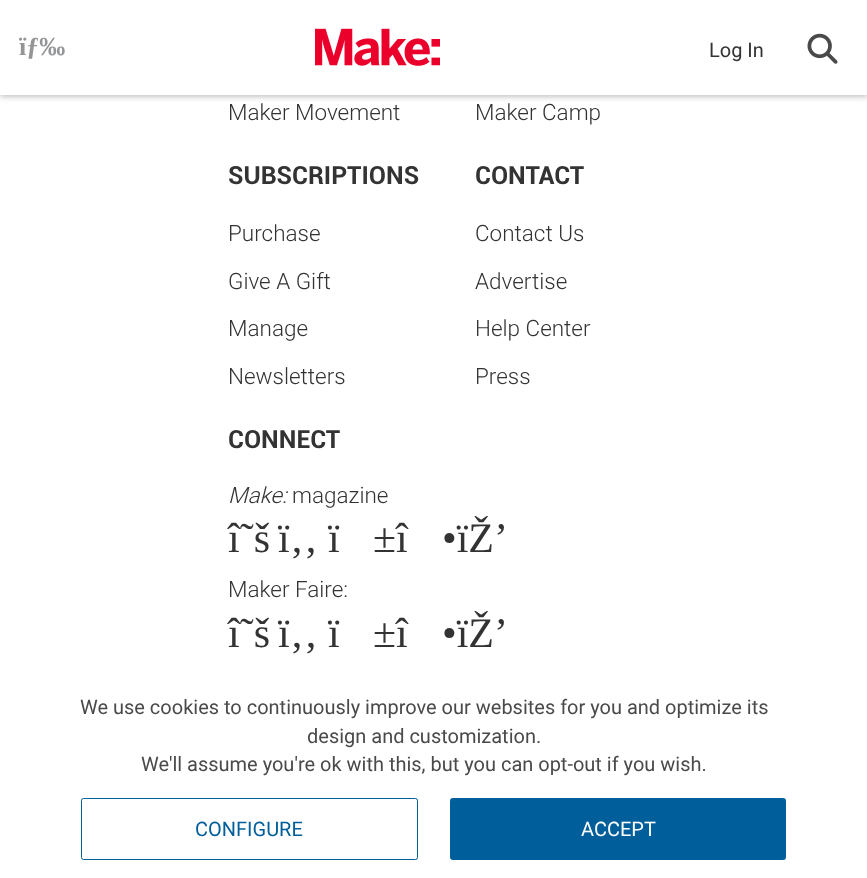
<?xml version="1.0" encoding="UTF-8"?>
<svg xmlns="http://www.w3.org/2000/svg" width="867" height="878">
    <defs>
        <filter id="blur1" x="-50%" y="-200%" width="200%" height="500%"><feGaussianBlur stdDeviation="3"/></filter>
    </defs>
    <rect width="100%" height="100%" fill="#FFFFFF"/>
    <rect x="0" y="1" width="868" height="95" fill="#000000" fill-opacity="0.3" filter="url(#blur1)"/>
    <rect x="0" y="0" width="867" height="95" fill="#FFFFFF"/>
    <text x="19" y="55" font-family="Liberation Serif" font-size="26" font-weight="700" fill="#939597">ïƒ‰</text>
    <image x="315" y="28" width="125" height="38" href="img_01.png"/>
    <text x="709" y="57" font-family="Roboto" font-size="20" fill="#333333">Log In</text>
    <image x="807" y="33" width="31" height="31" href="img_02.png"/>
    <text x="228" y="120" font-family="Roboto" font-size="22.5" font-weight="300" fill="#333333">Maker Movement</text>
    <text x="475" y="120" font-family="Roboto" font-size="22.5" font-weight="300" fill="#333333">Maker Camp</text>
    <text x="228" y="184" font-family="Roboto" font-size="25" font-weight="700" fill="#333333">SUBSCRIPTIONS</text>
    <text x="228" y="241" font-family="Roboto" font-size="22.5" font-weight="300" fill="#333333">Purchase</text>
    <text x="228" y="289" font-family="Roboto" font-size="22.5" font-weight="300" fill="#333333">Give A Gift</text>
    <text x="228" y="336" font-family="Roboto" font-size="22.5" font-weight="300" fill="#333333">Manage</text>
    <text x="228" y="384" font-family="Roboto" font-size="22.5" font-weight="300" fill="#333333">Newsletters</text>
    <text x="475" y="184" font-family="Roboto" font-size="25" font-weight="700" fill="#333333">CONTACT</text>
    <text x="475" y="241" font-family="Roboto" font-size="22.5" font-weight="300" fill="#333333">Contact Us</text>
    <text x="475" y="289" font-family="Roboto" font-size="22.5" font-weight="300" fill="#333333">Advertise</text>
    <text x="475" y="336" font-family="Roboto" font-size="22.5" font-weight="300" fill="#333333">Help Center</text>
    <text x="475" y="384" font-family="Roboto" font-size="22.5" font-weight="300" fill="#333333">Press</text>
    <text x="228" y="448" font-family="Roboto" font-size="25" font-weight="700" fill="#333333">CONNECT</text>
    <text x="228" y="503" font-family="Roboto" font-size="22.5" font-weight="300" font-style="italic" fill="#333333">Make:</text>
    <text x="292" y="503" font-family="Roboto" font-size="22.5" font-weight="300" fill="#333333">magazine</text>
    <text x="228" y="552" font-family="Liberation Serif" font-size="42" fill="#333333">î˜š</text>
    <text x="278" y="552" font-family="Liberation Serif" font-size="42" fill="#333333">ï‚‚</text>
    <text x="328" y="552" font-family="Liberation Serif" font-size="42" fill="#333333">ï</text>
    <text x="373" y="552" font-family="Liberation Serif" font-size="42" fill="#333333">±î</text>
    <text x="442" y="552" font-family="Liberation Serif" font-size="42" fill="#333333">•ïŽ’</text>
    <text x="228" y="597" font-family="Roboto" font-size="22.5" font-weight="300" fill="#333333">Maker Faire:</text>
    <text x="228" y="647" font-family="Liberation Serif" font-size="42" fill="#333333">î˜š</text>
    <text x="278" y="647" font-family="Liberation Serif" font-size="42" fill="#333333">ï‚‚</text>
    <text x="328" y="647" font-family="Liberation Serif" font-size="42" fill="#333333">ï</text>
    <text x="373" y="647" font-family="Liberation Serif" font-size="42" fill="#333333">±î</text>
    <text x="442" y="647" font-family="Liberation Serif" font-size="42" fill="#333333">•ïŽ’</text>
    <text x="80" y="714" font-family="Roboto" font-size="20" fill="#4A4A4A">We use cookies to continuously improve our websites for you and optimize its</text>
    <text x="307" y="743" font-family="Roboto" font-size="20" fill="#4A4A4A">design and customization.</text>
    <text x="141" y="771" font-family="Roboto" font-size="20" fill="#4A4A4A">We'll assume you're ok with this, but you can opt-out if you wish.</text>
    <rect x="81.5" y="798.5" width="336" height="61" rx="2" fill="none" stroke="#005E9A"/>
    <text x="195" y="836" font-family="Roboto" font-size="20" fill="#005E9A">CONFIGURE</text>
    <rect x="450.5" y="798.5" width="335" height="61" rx="2" fill="#005E9A" stroke="#005E9A"/>
    <text x="581" y="836" font-family="Roboto" font-size="20" fill="#FFFFFF">ACCEPT</text>
</svg>
